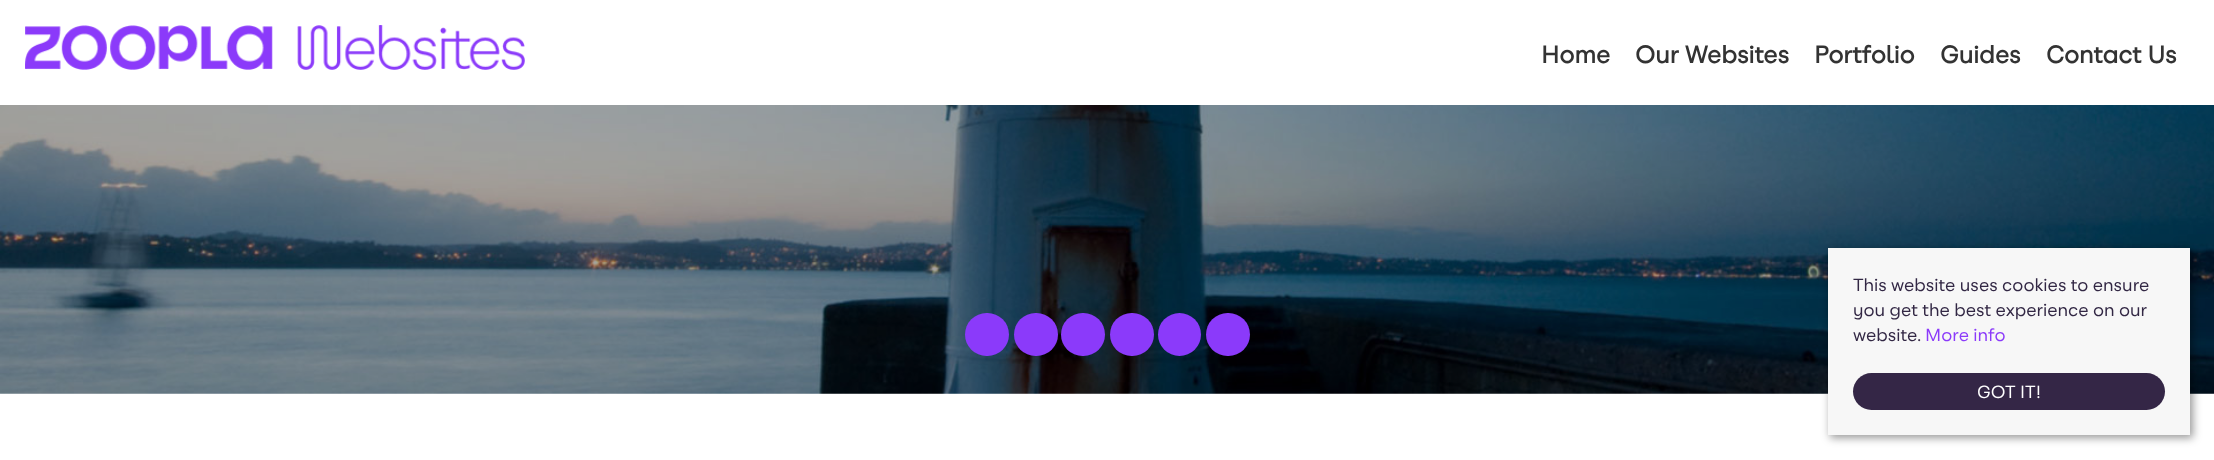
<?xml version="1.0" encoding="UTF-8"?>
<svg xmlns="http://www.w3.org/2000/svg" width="2214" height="460">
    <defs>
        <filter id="blur1" x="-50%" y="-200%" width="200%" height="500%"><feGaussianBlur stdDeviation="4.5"/></filter>
    </defs>
    <rect width="100%" height="100%" fill="#FFFFFF"/>
    <image x="25" y="25" width="500" height="45" href="img_01.png"/>
    <text x="1541" y="63" font-family="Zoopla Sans" font-size="24" font-weight="700" fill="#333333">Home</text>
    <text x="1635" y="63" font-family="Zoopla Sans" font-size="24" font-weight="700" fill="#333333">Our Websites</text>
    <text x="1814" y="63" font-family="Zoopla Sans" font-size="24" font-weight="700" fill="#333333">Portfolio</text>
    <text x="1940" y="63" font-family="Zoopla Sans" font-size="24" font-weight="700" fill="#333333">Guides</text>
    <text x="2046" y="63" font-family="Zoopla Sans" font-size="24" font-weight="700" fill="#333333">Contact Us</text>
    <image x="0" y="105" width="2214" height="289" href="img_02.png"/>
    <rect x="965" y="313" width="44" height="43" rx="21.5" fill="#8B3AFA"/>
    <rect x="1014" y="313" width="44" height="43" rx="21.5" fill="#8B3AFA"/>
    <rect x="1061" y="313" width="44" height="43" rx="21.5" fill="#8B3AFA"/>
    <rect x="1110" y="313" width="44" height="43" rx="21.5" fill="#8B3AFA"/>
    <circle cx="1179.5" cy="334.5" r="21.5" fill="#8B3AFA"/>
    <rect x="1206" y="313" width="44" height="43" rx="21.5" fill="#8B3AFA"/>
    <rect x="1830" y="250" width="363" height="188" fill="#000000" fill-opacity="0.4" filter="url(#blur1)"/>
    <rect x="1828" y="248" width="362" height="187" fill="#F7F7F7"/>
    <text font-family="Zoopla Sans" font-size="17.5" fill="#322744">
        <tspan x="1853" y="291">This website uses cookies to ensure</tspan>
        <tspan x="1853" y="316">you get the best experience on our</tspan>
        <tspan x="1853" y="341">website.</tspan>
    </text>
    <text x="1925" y="341" font-family="Zoopla Sans" font-size="17.5" fill="#8B3AFA">More info</text>
    <rect x="1853" y="373" width="312" height="37" rx="18.5" fill="#342646"/>
    <text x="1977" y="398" font-family="Zoopla Sans" font-size="17.5" fill="#FFFFFF">GOT IT!</text>
</svg>
